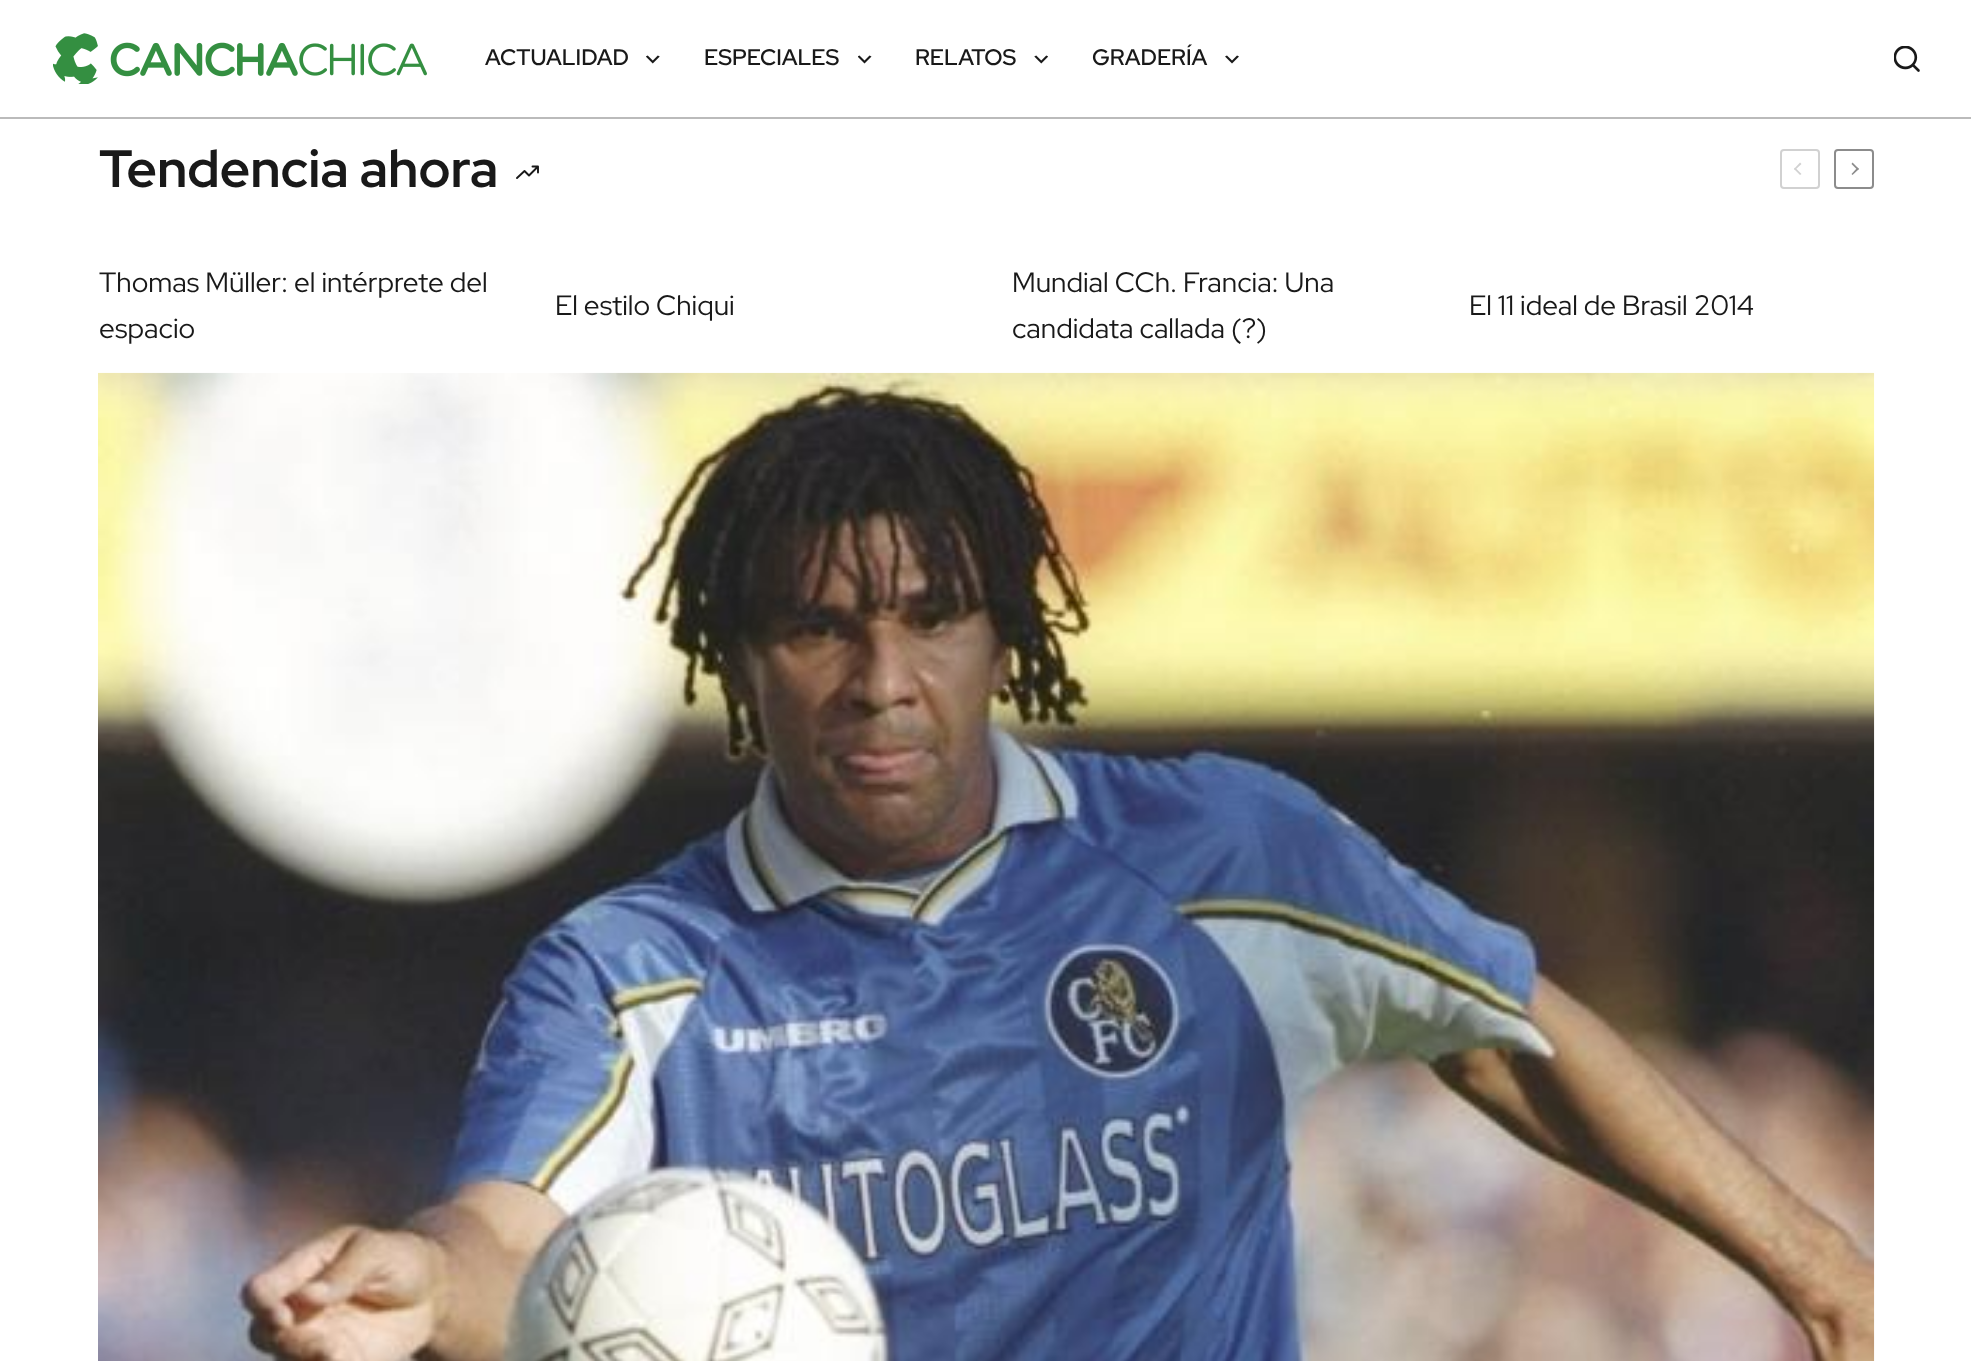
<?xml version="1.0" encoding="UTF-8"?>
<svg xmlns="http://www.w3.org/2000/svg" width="1971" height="1361">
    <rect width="100%" height="100%" fill="#FFFFFF"/>
    <rect x="0" y="117" width="1971" height="2" fill="#BBBBBB"/>
    <image x="53" y="33" width="374" height="51" href="img_01.png"/>
    <text x="485" y="65" font-family="Red Hat Display" font-size="22.5" font-weight="600" fill="#191919">ACTUALIDAD</text>
    <image x="646" y="55" width="14" height="9" href="img_02.png"/>
    <text x="704" y="65" font-family="Red Hat Display" font-size="22.5" font-weight="600" fill="#191919">ESPECIALES</text>
    <image x="858" y="55" width="14" height="9" href="img_03.png"/>
    <text x="915" y="65" font-family="Red Hat Display" font-size="22.5" font-weight="600" fill="#191919">RELATOS</text>
    <image x="1034" y="55" width="14" height="9" href="img_04.png"/>
    <text x="1092" y="65" font-family="Red Hat Display" font-size="22.5" font-weight="600" fill="#191919">GRADERÍA</text>
    <image x="1225" y="55" width="14" height="9" href="img_05.png"/>
    <image x="1894" y="46" width="26" height="26" href="img_06.png"/>
    <text x="99" y="187" font-family="Red Hat Display" font-size="52.5" font-weight="700" fill="#191919">Tendencia ahora</text>
    <path d="M 538 166.5 L 529 175.5 L 524.5 171 L 517 178 M 532.5 166.5 H 538 V 172.5" fill="none" stroke="#191919" stroke-width="1.9" stroke-linecap="round" stroke-linejoin="round"/>
    <rect x="1781" y="150" width="38" height="38" rx="3" fill="none" stroke="#D1D1D1" stroke-width="2"/>
    <path d="M 1794 169 L 1800 162.5 L 1801.5 164 L 1795 170 Z" fill="#D1D1D1"/>
    <path d="M 1794 169 L 1795 167.5 L 1801.5 174 L 1800 175 Z" fill="#D1D1D1"/>
    <rect x="1835" y="150" width="38" height="38" rx="3" fill="none" stroke="#8C8C8C" stroke-width="2"/>
    <path d="M 1859 169 L 1852.5 175 L 1851.5 174 L 1857.5 167.5 Z" fill="#8C8C8C"/>
    <path d="M 1859 169 L 1857.5 170 L 1851.5 164 L 1852.5 162.5 Z" fill="#8C8C8C"/>
    <text font-family="Red Hat Display" font-size="28" fill="#191919">
        <tspan x="99" y="292">Thomas Müller: el intérprete del</tspan>
        <tspan x="99" y="338">espacio</tspan>
    </text>
    <text x="555" y="315" font-family="Red Hat Display" font-size="28" fill="#191919">El estilo Chiqui</text>
    <text font-family="Red Hat Display" font-size="28" fill="#191919">
        <tspan x="1012" y="292">Mundial CCh. Francia: Una</tspan>
        <tspan x="1012" y="338">candidata callada (?)</tspan>
    </text>
    <text x="1469" y="315" font-family="Red Hat Display" font-size="28" fill="#191919">El 11 ideal de Brasil 2014</text>
    <image x="98" y="372" width="1777" height="989" href="img_07.png"/>
</svg>
